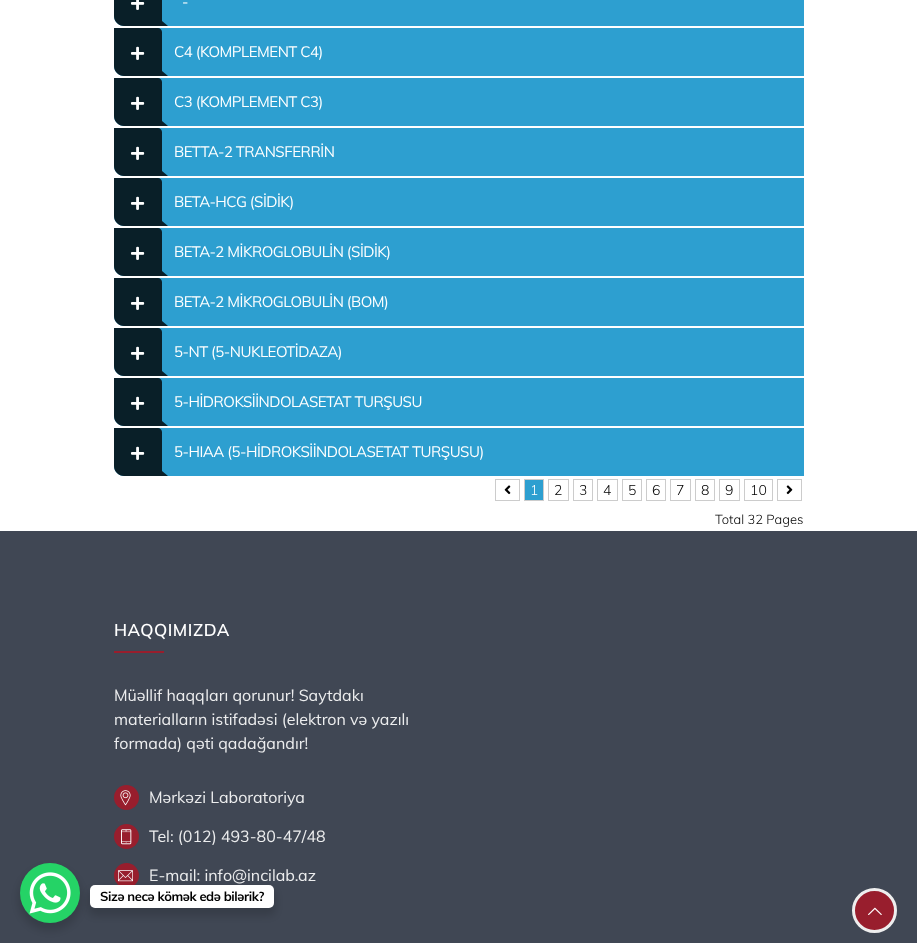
<?xml version="1.0" encoding="UTF-8"?>
<svg xmlns="http://www.w3.org/2000/svg" width="917" height="943">
    <defs>
        <filter id="blur1" x="-50%" y="-200%" width="200%" height="500%"><feGaussianBlur stdDeviation="4"/></filter>
    </defs>
    <rect width="100%" height="100%" fill="#FFFFFF"/>
    <path d="M 114 -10 H 804 V 26 H 124 C 118.5 26 114 21.5 114 16 Z" fill="#2D9FD0"/>
    <path d="M 114 -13 V -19 L 168 26 H 161 Z" fill="#091F28"/>
    <path d="M 114 -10 H 158 C 160 -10 162 -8 162 -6 V 26 H 124 C 118.5 26 114 21.5 114 16 Z" fill="#091F28"/>
    <image x="131" y="0" width="14" height="10" href="img_01.png"/>
    <text x="182" y="7" font-family="Muli" font-size="15" letter-spacing="-0.5" fill="#FFFFFF">-</text>
    <path d="M 114 28 H 804 V 76 H 124 C 118.5 76 114 71.5 114 66 Z" fill="#2D9FD0"/>
    <path d="M 114 37 V 31 L 168 76 H 161 Z" fill="#091F28"/>
    <path d="M 114 28 H 158 C 160 28 162 30 162 32 V 76 H 124 C 118.5 76 114 71.5 114 66 Z" fill="#091F28"/>
    <image x="131" y="46" width="14" height="14" href="img_02.png"/>
    <text x="174" y="57" font-family="Muli" font-size="15" letter-spacing="-0.5" fill="#FFFFFF">C4 (KOMPLEMENT C4)</text>
    <path d="M 114 78 H 804 V 126 H 124 C 118.5 126 114 121.5 114 116 Z" fill="#2D9FD0"/>
    <path d="M 114 87 V 81 L 168 126 H 161 Z" fill="#091F28"/>
    <path d="M 114 78 H 158 C 160 78 162 80 162 82 V 126 H 124 C 118.5 126 114 121.5 114 116 Z" fill="#091F28"/>
    <image x="131" y="96" width="14" height="14" href="img_02.png"/>
    <text x="174" y="107" font-family="Muli" font-size="15" letter-spacing="-0.5" fill="#FFFFFF">C3 (KOMPLEMENT C3)</text>
    <path d="M 114 128 H 804 V 176 H 124 C 118.5 176 114 171.5 114 166 Z" fill="#2D9FD0"/>
    <path d="M 114 137 V 131 L 168 176 H 161 Z" fill="#091F28"/>
    <path d="M 114 128 H 158 C 160 128 162 130 162 132 V 176 H 124 C 118.5 176 114 171.5 114 166 Z" fill="#091F28"/>
    <image x="131" y="146" width="14" height="14" href="img_02.png"/>
    <text x="174" y="157" font-family="Muli" font-size="15" letter-spacing="-0.5" fill="#FFFFFF">BETTA-2 TRANSFERRİN</text>
    <path d="M 114 178 H 804 V 226 H 124 C 118.5 226 114 221.5 114 216 Z" fill="#2D9FD0"/>
    <path d="M 114 187 V 181 L 168 226 H 161 Z" fill="#091F28"/>
    <path d="M 114 178 H 158 C 160 178 162 180 162 182 V 226 H 124 C 118.5 226 114 221.5 114 216 Z" fill="#091F28"/>
    <image x="131" y="196" width="14" height="14" href="img_02.png"/>
    <text x="174" y="207" font-family="Muli" font-size="15" letter-spacing="-0.5" fill="#FFFFFF">BETA-HCG (SİDİK)</text>
    <path d="M 114 228 H 804 V 276 H 124 C 118.5 276 114 271.5 114 266 Z" fill="#2D9FD0"/>
    <path d="M 114 237 V 231 L 168 276 H 161 Z" fill="#091F28"/>
    <path d="M 114 228 H 158 C 160 228 162 230 162 232 V 276 H 124 C 118.5 276 114 271.5 114 266 Z" fill="#091F28"/>
    <image x="131" y="246" width="14" height="14" href="img_02.png"/>
    <text x="174" y="257" font-family="Muli" font-size="15" letter-spacing="-0.5" fill="#FFFFFF">BETA-2 MİKROGLOBULİN (SİDİK)</text>
    <path d="M 114 278 H 804 V 326 H 124 C 118.5 326 114 321.5 114 316 Z" fill="#2D9FD0"/>
    <path d="M 114 287 V 281 L 168 326 H 161 Z" fill="#091F28"/>
    <path d="M 114 278 H 158 C 160 278 162 280 162 282 V 326 H 124 C 118.5 326 114 321.5 114 316 Z" fill="#091F28"/>
    <image x="131" y="296" width="14" height="14" href="img_02.png"/>
    <text x="174" y="307" font-family="Muli" font-size="15" letter-spacing="-0.5" fill="#FFFFFF">BETA-2 MİKROGLOBULİN (BOM)</text>
    <path d="M 114 328 H 804 V 376 H 124 C 118.5 376 114 371.5 114 366 Z" fill="#2D9FD0"/>
    <path d="M 114 337 V 331 L 168 376 H 161 Z" fill="#091F28"/>
    <path d="M 114 328 H 158 C 160 328 162 330 162 332 V 376 H 124 C 118.5 376 114 371.5 114 366 Z" fill="#091F28"/>
    <image x="131" y="346" width="14" height="14" href="img_02.png"/>
    <text x="174" y="357" font-family="Muli" font-size="15" letter-spacing="-0.5" fill="#FFFFFF">5-NT (5-NUKLEOTİDAZA)</text>
    <path d="M 114 378 H 804 V 426 H 124 C 118.5 426 114 421.5 114 416 Z" fill="#2D9FD0"/>
    <path d="M 114 387 V 381 L 168 426 H 161 Z" fill="#091F28"/>
    <path d="M 114 378 H 158 C 160 378 162 380 162 382 V 426 H 124 C 118.5 426 114 421.5 114 416 Z" fill="#091F28"/>
    <image x="131" y="396" width="14" height="14" href="img_02.png"/>
    <text x="174" y="407" font-family="Muli" font-size="15" letter-spacing="-0.5" fill="#FFFFFF">5-HİDROKSİİNDOLASETAT TURŞUSU</text>
    <path d="M 114 428 H 804 V 476 H 124 C 118.5 476 114 471.5 114 466 Z" fill="#2D9FD0"/>
    <path d="M 114 437 V 431 L 168 476 H 161 Z" fill="#091F28"/>
    <path d="M 114 428 H 158 C 160 428 162 430 162 432 V 476 H 124 C 118.5 476 114 471.5 114 466 Z" fill="#091F28"/>
    <image x="131" y="446" width="14" height="14" href="img_02.png"/>
    <text x="174" y="457" font-family="Muli" font-size="15" letter-spacing="-0.5" fill="#FFFFFF">5-HIAA (5-HİDROKSİİNDOLASETAT TURŞUSU)</text>
    <rect x="495.5" y="479.5" width="24" height="21" fill="none" stroke="#CCCCCC"/>
    <image x="504" y="485" width="7" height="10" href="img_03.png"/>
    <rect x="524.5" y="479.5" width="19" height="21" fill="#2D9FD0" stroke="#CCCCCC"/>
    <text x="530" y="495" font-family="Muli" font-size="14" font-weight="300" fill="#FFFFFF">1</text>
    <rect x="548.5" y="479.5" width="20" height="21" fill="none" stroke="#CCCCCC"/>
    <text x="554" y="495" font-family="Muli" font-size="14" font-weight="300" fill="#000000">2</text>
    <rect x="573.5" y="479.5" width="19" height="21" fill="none" stroke="#CCCCCC"/>
    <text x="579" y="495" font-family="Muli" font-size="14" font-weight="300" fill="#000000">3</text>
    <rect x="597.5" y="479.5" width="20" height="21" fill="none" stroke="#CCCCCC"/>
    <text x="603" y="495" font-family="Muli" font-size="14" font-weight="300" fill="#000000">4</text>
    <rect x="622.5" y="479.5" width="19" height="21" fill="none" stroke="#CCCCCC"/>
    <text x="628" y="495" font-family="Muli" font-size="14" font-weight="300" fill="#000000">5</text>
    <rect x="646.5" y="479.5" width="19" height="21" fill="none" stroke="#CCCCCC"/>
    <text x="652" y="495" font-family="Muli" font-size="14" font-weight="300" fill="#000000">6</text>
    <rect x="670.5" y="479.5" width="20" height="21" fill="none" stroke="#CCCCCC"/>
    <text x="676" y="495" font-family="Muli" font-size="14" font-weight="300" fill="#000000">7</text>
    <rect x="695.5" y="479.5" width="19" height="21" fill="none" stroke="#CCCCCC"/>
    <text x="701" y="495" font-family="Muli" font-size="14" font-weight="300" fill="#000000">8</text>
    <rect x="719.5" y="479.5" width="20" height="21" fill="none" stroke="#CCCCCC"/>
    <text x="725" y="495" font-family="Muli" font-size="14" font-weight="300" fill="#000000">9</text>
    <rect x="744.5" y="479.5" width="28" height="21" fill="none" stroke="#CCCCCC"/>
    <text x="750" y="495" font-family="Muli" font-size="14" font-weight="300" fill="#000000">10</text>
    <rect x="777.5" y="479.5" width="24" height="21" fill="none" stroke="#CCCCCC"/>
    <image x="786" y="485" width="7" height="10" href="img_04.png"/>
    <text x="715" y="524" font-family="Muli" font-size="13" font-weight="300" fill="#000000">Total 32 Pages</text>
    <rect x="0" y="531" width="917" height="412" fill="#404754"/>
    <text x="114" y="636" font-family="Muli" font-size="17" font-weight="600" letter-spacing="0.5" fill="#FFFFFF">HAQQIMIZDA</text>
    <rect x="114" y="651" width="50" height="2" fill="#981E2D"/>
    <text font-family="Muli" font-size="16" fill="#ECEDEE">
        <tspan x="114" y="701">Müəllif haqqları qorunur! Saytdakı</tspan>
        <tspan x="114" y="725">materialların istifadəsi (elektron və yazılı</tspan>
        <tspan x="114" y="749">formada) qəti qadağandır!</tspan>
    </text>
    <circle cx="126.5" cy="797.5" r="12.5" fill="#981E2D"/>
    <image x="120" y="790" width="11" height="16" href="img_05.png"/>
    <text x="149" y="803" font-family="Muli" font-size="16" fill="#ECEDEE">Mərkəzi Laboratoriya</text>
    <circle cx="126.5" cy="836.5" r="12.5" fill="#981E2D"/>
    <image x="121" y="829" width="11" height="16" href="img_06.png"/>
    <text x="149" y="842" font-family="Muli" font-size="16" fill="#ECEDEE">Tel: (012) 493-80-47/48</text>
    <circle cx="126.5" cy="875.5" r="12.5" fill="#981E2D"/>
    <image x="118" y="870" width="15" height="12" href="img_07.png"/>
    <text x="149" y="881" font-family="Muli" font-size="16" fill="#ECEDEE">E-mail: info@incilab.az</text>
    <rect x="18" y="867" width="64" height="64" rx="32" fill="#000000" fill-opacity="0.15" filter="url(#blur1)"/>
    <circle cx="50" cy="893" r="30" fill="#25D366"/>
    <image x="29" y="872" width="42" height="42" href="img_08.png"/>
    <rect x="88" y="889" width="188" height="27" rx="7" fill="#000000" fill-opacity="0.15" filter="url(#blur1)"/>
    <rect x="90" y="885" width="184" height="23" rx="5" fill="#FFFFFF"/>
    <text x="100" y="901" font-family="Muli" font-size="13" font-weight="700" letter-spacing="-0.4" fill="#000000">Sizə necə kömək edə bilərik?</text>
    <circle cx="874.5" cy="910.5" r="21" fill="#981E2D" stroke="#EEEEEE" stroke-width="3"/>
    <image x="868" y="907" width="14" height="8" href="img_09.png"/>
</svg>
